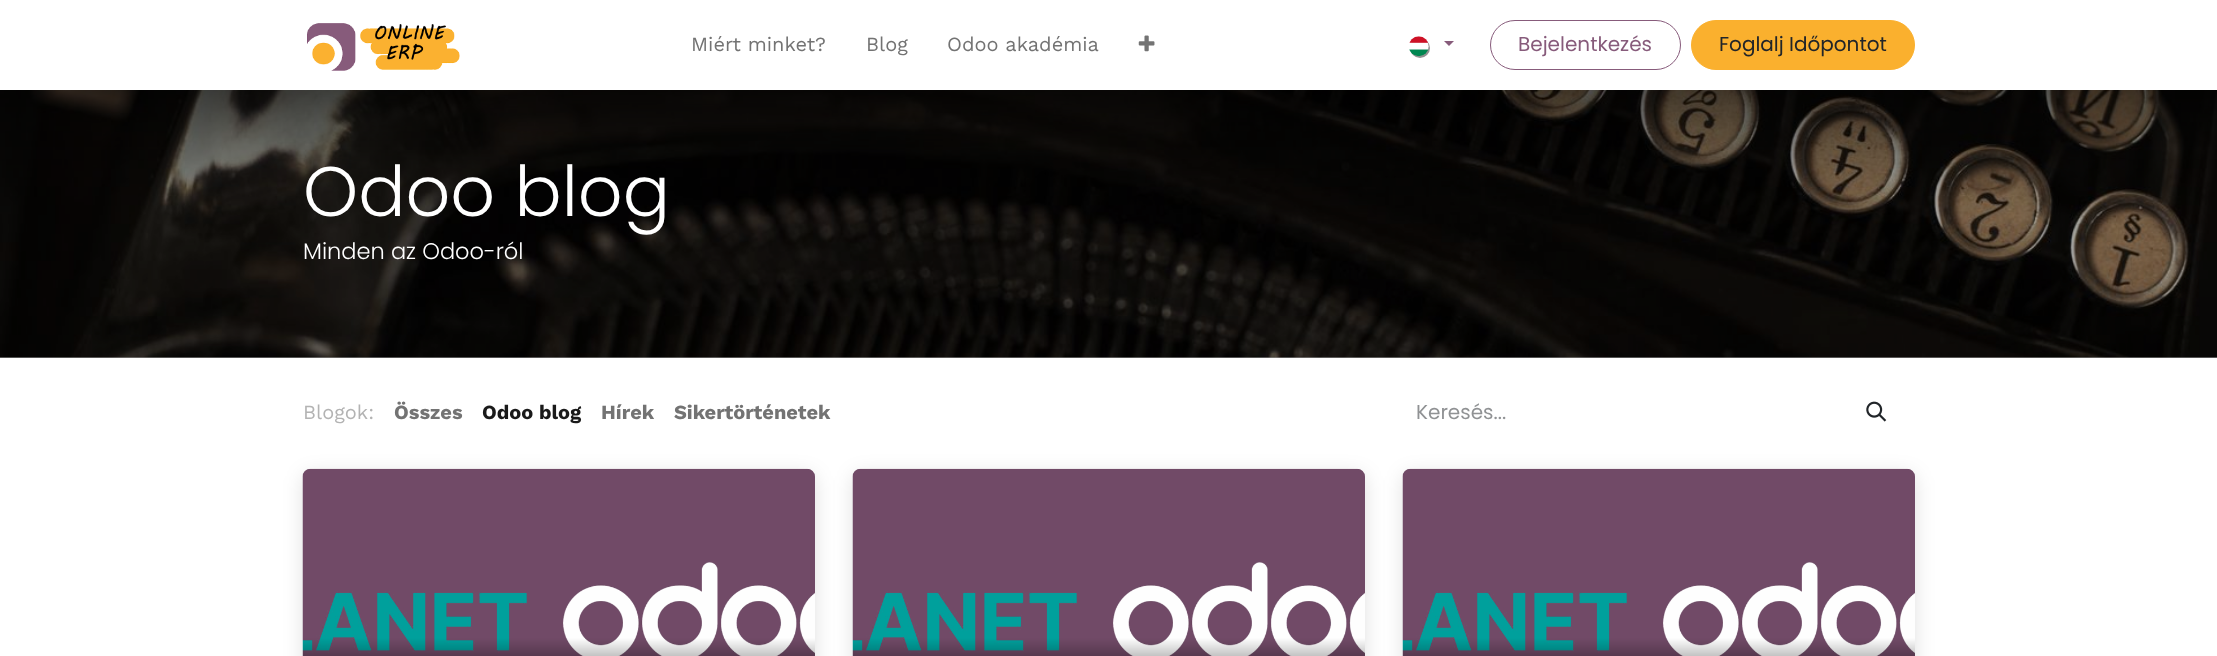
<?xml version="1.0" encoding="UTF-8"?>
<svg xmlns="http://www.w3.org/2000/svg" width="2217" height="656">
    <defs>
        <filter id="blur1" x="-50%" y="-200%" width="200%" height="500%"><feGaussianBlur stdDeviation="0.5"/></filter>
        <filter id="blur2" x="-50%" y="-200%" width="200%" height="500%"><feGaussianBlur stdDeviation="10"/></filter>
    </defs>
    <rect width="100%" height="100%" fill="#FFFFFF"/>
    <rect x="0" y="357" width="2217" height="1" fill="#A3A3A3"/>
    <image x="307" y="23" width="153" height="48" href="img_01.png"/>
    <text x="691" y="51" font-family="Work Sans" font-size="20" fill="#737373">Miért minket?</text>
    <text x="866" y="51" font-family="Work Sans" font-size="20" fill="#737373">Blog</text>
    <text x="947" y="51" font-family="Work Sans" font-size="20" fill="#737373">Odoo akadémia</text>
    <image x="1138" y="35" width="17" height="17" href="img_02.png"/>
    <rect x="1410" y="38" width="20" height="20" rx="10" fill="#000000" fill-opacity="0.43" filter="url(#blur1)"/>
    <image x="1409" y="36" width="20" height="21" href="img_03.png"/>
    <path d="M 1444 41 H 1454 L 1449 46 Z" fill="#875B7B"/>
    <rect x="1490.5" y="20.5" width="190" height="49" rx="24.5" fill="none" stroke="#875B7B"/>
    <text x="1518" y="51" font-family="Poppins" font-size="20" fill="#875B7B">Bejelentkezés</text>
    <rect x="1691.5" y="20.5" width="223" height="49" rx="24.5" fill="#FAB02E" stroke="#FAB02E"/>
    <text x="1719" y="51" font-family="Poppins" font-size="20" fill="#212529">Foglalj Időpontot</text>
    <image x="0" y="90" width="2217" height="268" href="img_04.png"/>
    <text x="303" y="216" font-family="Poppins" font-size="70" font-weight="300" fill="#FFFFFF">Odoo blog</text>
    <text x="303" y="259" font-family="Poppins" font-size="22.5" font-weight="300" fill="#FFFFFF">Minden az Odoo-ról</text>
    <text x="303" y="419" font-family="Work Sans" font-size="20" fill="#B3B3B3">Blogok:</text>
    <text x="394" y="419" font-family="Work Sans" font-size="20" font-weight="700" fill="#737373">Összes</text>
    <text x="482" y="419" font-family="Work Sans" font-size="20" font-weight="700" fill="#1A1A1A">Odoo blog</text>
    <text x="601" y="419" font-family="Work Sans" font-size="20" font-weight="700" fill="#737373">Hírek</text>
    <text x="674" y="419" font-family="Work Sans" font-size="20" font-weight="700" fill="#737373">Sikertörténetek</text>
    <text x="1416" y="419" font-family="Poppins" font-size="20" fill="#909294">Keresés...</text>
    <image x="1866" y="401" width="21" height="21" href="img_05.png"/>
    <rect x="303" y="474" width="512" height="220" rx="8" fill="#000000" fill-opacity="0.12" filter="url(#blur2)"/>
    <image x="302" y="468" width="513" height="188" href="img_06.png"/>
    <rect x="853" y="474" width="512" height="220" rx="8" fill="#000000" fill-opacity="0.12" filter="url(#blur2)"/>
    <image x="852" y="468" width="513" height="188" href="img_06.png"/>
    <rect x="1403" y="474" width="512" height="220" rx="8" fill="#000000" fill-opacity="0.12" filter="url(#blur2)"/>
    <image x="1402" y="468" width="513" height="188" href="img_06.png"/>
</svg>
